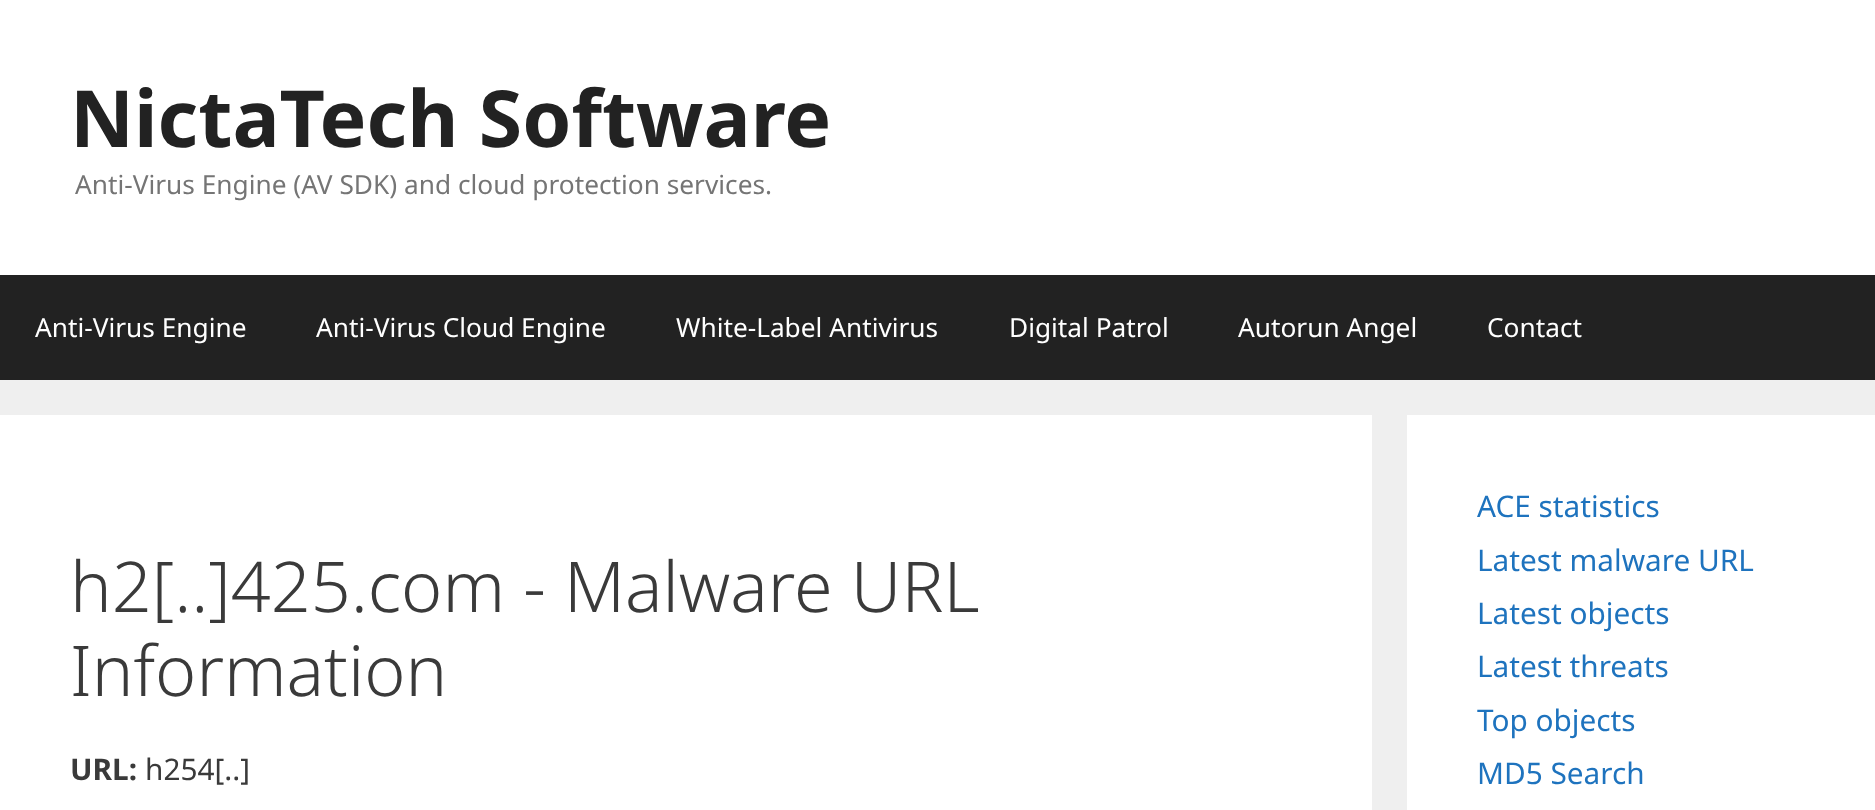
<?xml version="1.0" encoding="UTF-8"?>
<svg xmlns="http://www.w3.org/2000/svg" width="1875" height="810">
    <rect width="100%" height="100%" fill="#EFEFEF"/>
    <rect x="0" y="0" width="1875" height="275" fill="#FFFFFF"/>
    <text x="70" y="147" font-family="Noto Sans" font-size="78.75" font-weight="700" fill="#222222">NictaTech Software</text>
    <text x="75" y="194" font-family="Noto Sans" font-size="26.25" fill="#757575">Anti-Virus Engine (AV SDK) and cloud protection services.</text>
    <rect x="0" y="275" width="1875" height="105" fill="#222222"/>
    <text x="35" y="337" font-family="Noto Sans" font-size="26.25" fill="#FFFFFF">Anti-Virus Engine</text>
    <text x="316" y="337" font-family="Noto Sans" font-size="26.25" fill="#FFFFFF">Anti-Virus Cloud Engine</text>
    <text x="676" y="337" font-family="Noto Sans" font-size="26.25" fill="#FFFFFF">White-Label Antivirus</text>
    <text x="1009" y="337" font-family="Noto Sans" font-size="26.25" fill="#FFFFFF">Digital Patrol</text>
    <text x="1238" y="337" font-family="Noto Sans" font-size="26.25" fill="#FFFFFF">Autorun Angel</text>
    <text x="1487" y="337" font-family="Noto Sans" font-size="26.25" fill="#FFFFFF">Contact</text>
    <rect x="0" y="415" width="1372" height="395" fill="#FFFFFF"/>
    <text font-family="Noto Sans" font-size="70" font-weight="300" fill="#3A3A3A">
        <tspan x="70" y="612">h2[..]425.com - Malware URL</tspan>
        <tspan x="70" y="696">Information</tspan>
    </text>
    <text x="70" y="780" font-family="Noto Sans" font-size="29.75" font-weight="700" fill="#3A3A3A">URL:</text>
    <text x="145" y="780" font-family="Noto Sans" font-size="29.75" fill="#3A3A3A">h254[..]</text>
    <rect x="1407" y="415" width="468" height="395" fill="#FFFFFF"/>
    <text font-family="Noto Sans" font-size="29.75" fill="#1E73BE">
        <tspan x="1477" y="517">ACE statistics</tspan>
        <tspan x="1477" y="571">Latest malware URL</tspan>
        <tspan x="1477" y="624">Latest objects</tspan>
        <tspan x="1477" y="677">Latest threats</tspan>
        <tspan x="1477" y="731">Top objects</tspan>
        <tspan x="1477" y="784">MD5 Search</tspan>
    </text>
</svg>
